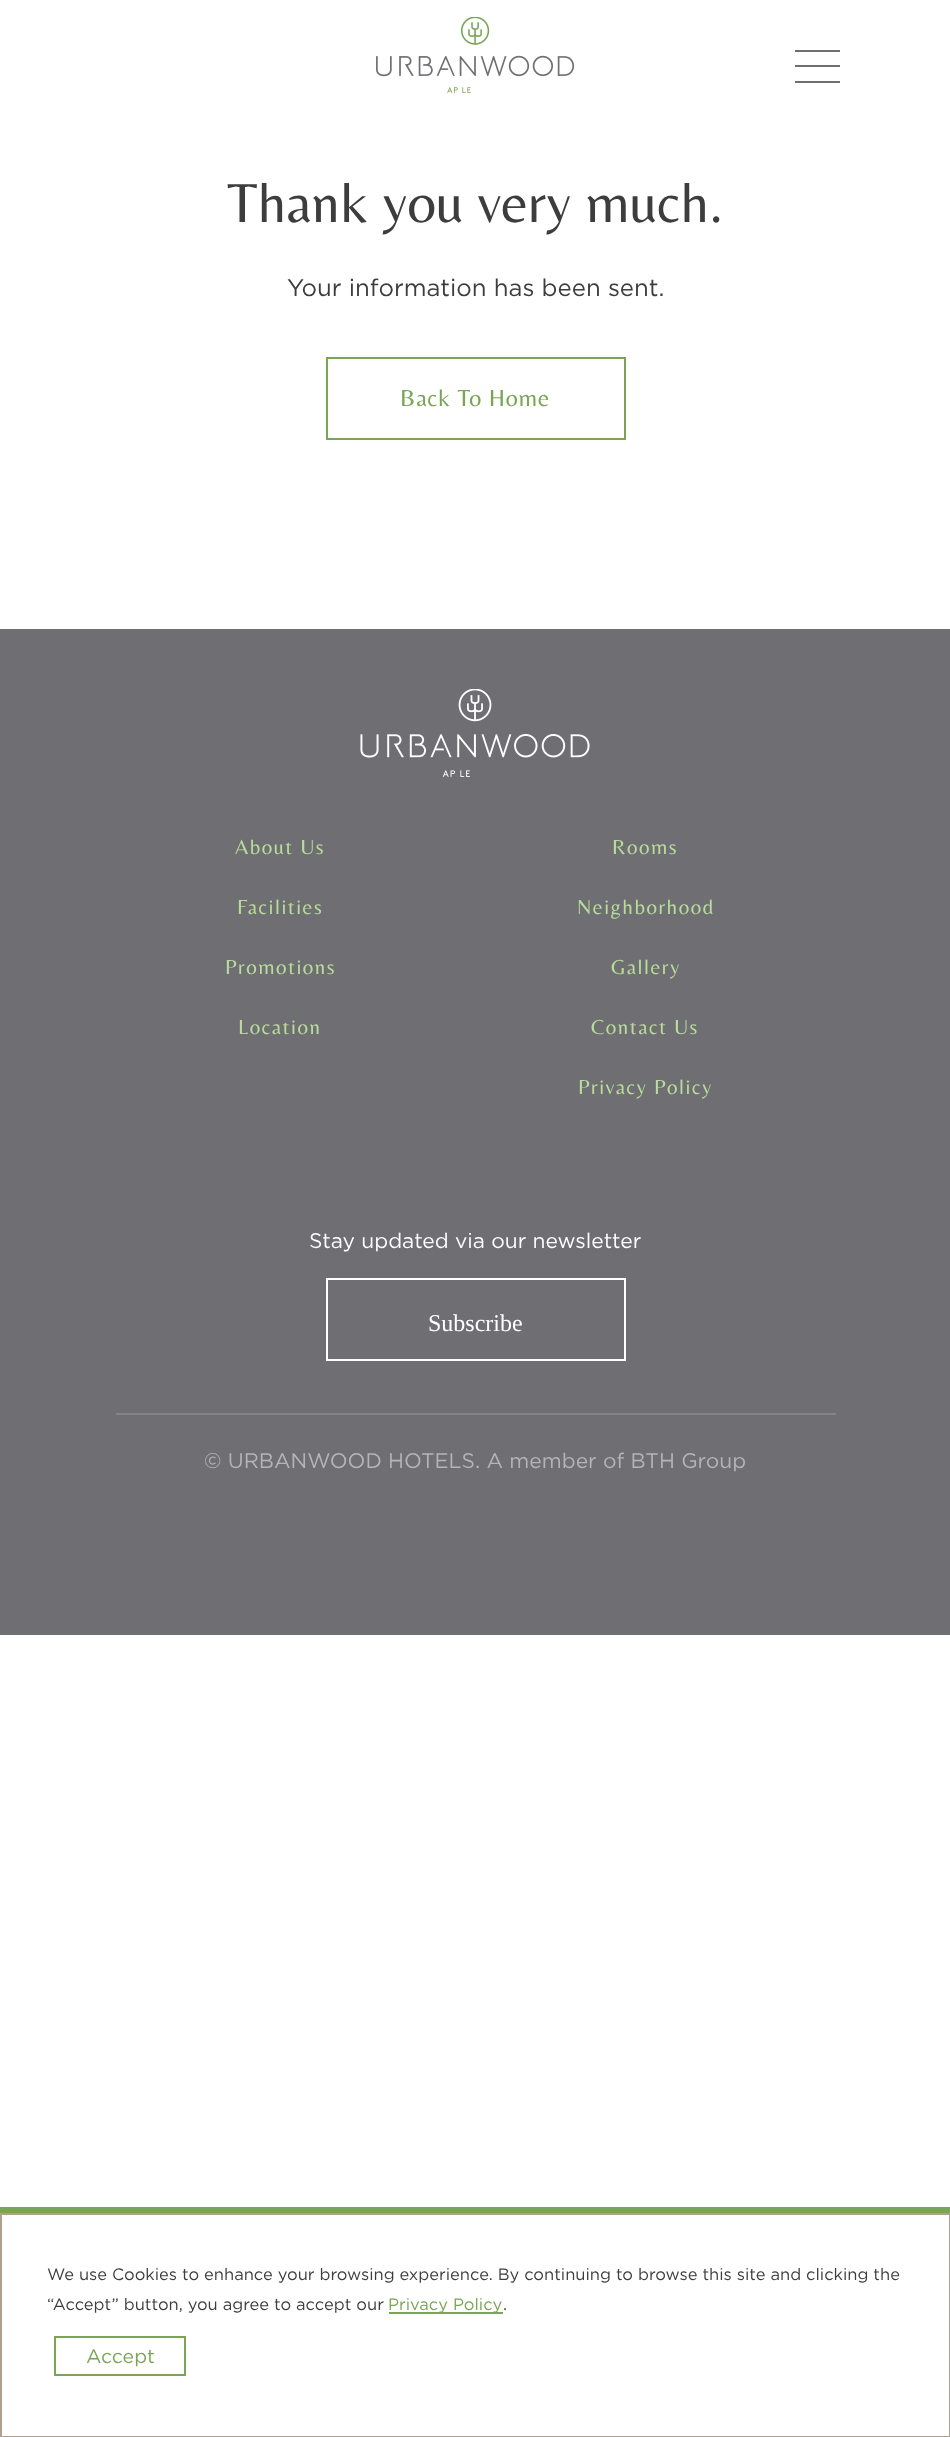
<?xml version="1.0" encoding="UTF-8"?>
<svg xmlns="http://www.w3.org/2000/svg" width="950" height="2437">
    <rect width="100%" height="100%" fill="#FFFFFF"/>
    <image x="376" y="17" width="199" height="76" href="img_01.png"/>
    <rect x="795" y="50" width="45" height="2" fill="#6E6E73"/>
    <rect x="795" y="65" width="45" height="2" fill="#6E6E73"/>
    <rect x="795" y="81" width="45" height="2" fill="#6E6E73"/>
    <text x="227" y="222" font-family="Belleza" font-size="57" fill="#3D3D3D">Thank you very much.</text>
    <text x="287" y="296" font-family="Gotham" font-size="24" fill="#3D3D3D">Your information has been sent.</text>
    <rect x="327" y="358" width="298" height="81" fill="none" stroke="#79A554" stroke-width="2"/>
    <text x="400" y="406" font-family="Belleza" font-size="24" letter-spacing="0.75" fill="#79A554">Back To Home</text>
    <rect x="0" y="629" width="950" height="1006" fill="#6E6E73"/>
    <rect x="116" y="1413" width="720" height="2" fill="#848484"/>
    <image x="360" y="689" width="230" height="88" href="img_02.png"/>
    <text x="235" y="854" font-family="Belleza" font-size="21" letter-spacing="1.5" fill="#B9DC9B">About Us</text>
    <text x="612" y="854" font-family="Belleza" font-size="21" letter-spacing="1.5" fill="#B9DC9B">Rooms</text>
    <text x="237" y="914" font-family="Belleza" font-size="21" letter-spacing="1.5" fill="#B9DC9B">Facilities</text>
    <text x="577" y="914" font-family="Belleza" font-size="21" letter-spacing="1.5" fill="#B9DC9B">Neighborhood</text>
    <text x="225" y="974" font-family="Belleza" font-size="21" letter-spacing="1.5" fill="#B9DC9B">Promotions</text>
    <text x="611" y="974" font-family="Belleza" font-size="21" letter-spacing="1.5" fill="#B9DC9B">Gallery</text>
    <text x="238" y="1034" font-family="Belleza" font-size="21" letter-spacing="1.5" fill="#B9DC9B">Location</text>
    <text x="591" y="1034" font-family="Belleza" font-size="21" letter-spacing="1.5" fill="#B9DC9B">Contact Us</text>
    <text x="578" y="1094" font-family="Belleza" font-size="21" letter-spacing="1.5" fill="#B9DC9B">Privacy Policy</text>
    <text x="309" y="1248" font-family="Gotham" font-size="21" fill="#FFFFFF">Stay updated via our newsletter</text>
    <rect x="327" y="1279" width="298" height="81" fill="none" stroke="#FFFFFF" stroke-width="2"/>
    <text x="428" y="1331" font-family="Liberation Serif" font-size="24" fill="#FFFFFF">Subscribe</text>
    <text x="204" y="1468" font-family="Gotham" font-size="21" fill="#B5B5B5">© URBANWOOD HOTELS. A member of BTH Group</text>
    <rect x="0" y="2207" width="950" height="6" fill="#79A554"/>
    <rect x="1" y="2214" width="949" height="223" fill="none" stroke="#B0A08F" stroke-width="2"/>
    <text font-family="Gotham" font-size="16.5" fill="#3D3D3D">
        <tspan x="47" y="2280">We use Cookies to enhance your browsing experience. By continuing to browse this site and clicking the</tspan>
        <tspan x="47" y="2310">“Accept” button, you agree to accept our</tspan>
    </text>
    <rect x="389" y="2312" width="114" height="2" fill="#79A554"/>
    <text x="388" y="2310" font-family="Gotham" font-size="16.5" fill="#79A554">Privacy Policy</text>
    <text x="503" y="2310" font-family="Gotham" font-size="16.5" fill="#3D3D3D">.</text>
    <rect x="55" y="2337" width="130" height="38" fill="none" stroke="#79A554" stroke-width="2"/>
    <text x="86" y="2363" font-family="Gotham" font-size="19.5" fill="#79A554">Accept</text>
</svg>
